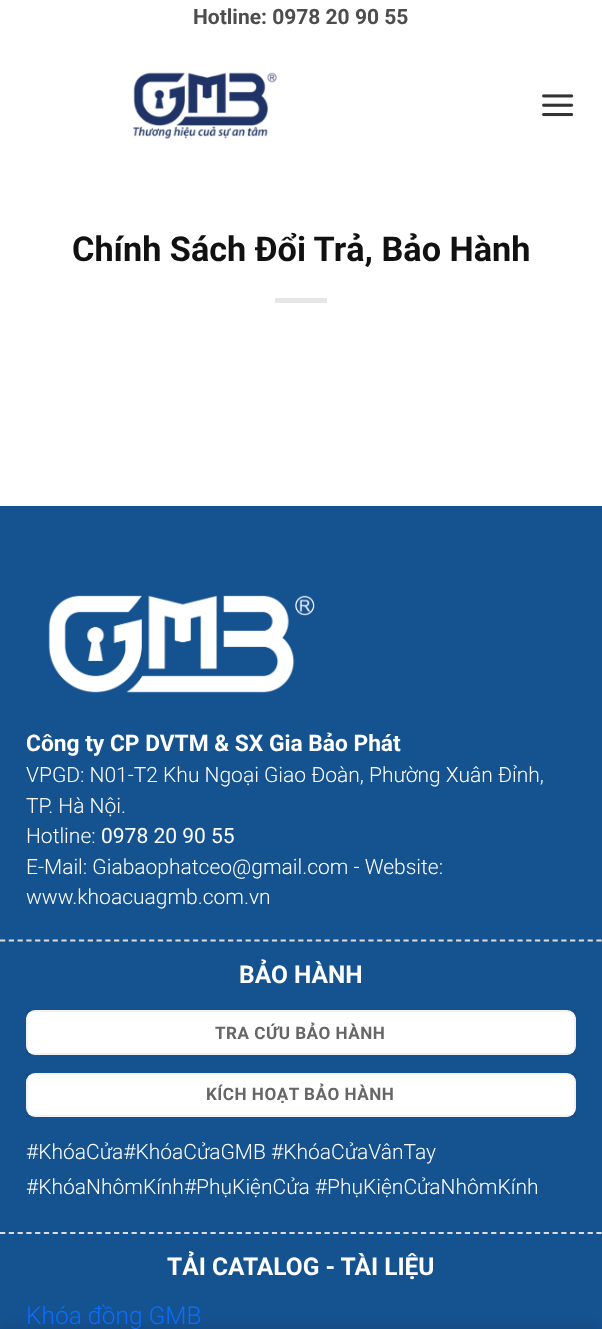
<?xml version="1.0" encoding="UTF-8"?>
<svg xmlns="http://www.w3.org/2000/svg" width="602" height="1329">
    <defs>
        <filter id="blur1" x="-50%" y="-200%" width="200%" height="500%"><feGaussianBlur stdDeviation="8"/></filter>
    </defs>
    <rect width="100%" height="100%" fill="#FFFFFF"/>
    <text x="193" y="24" font-family="Roboto" font-size="21" font-weight="700" fill="#4D4D4D">Hotline: 0978 20 90 55</text>
    <image x="133" y="72" width="144" height="67" href="img_01.png"/>
    <image x="542" y="94" width="32" height="23" href="img_02.png"/>
    <text x="72" y="261" font-family="Roboto" font-size="34.25" font-weight="700" fill="#111111">Chính Sách Đổi Trả, Bảo Hành</text>
    <rect x="275" y="298" width="52" height="5" fill="#E6E6E6"/>
    <rect x="0" y="506" width="602" height="823" fill="#155290"/>
    <image x="48" y="595" width="267" height="98" href="img_03.png"/>
    <text x="26" y="751" font-family="Roboto" font-size="22.75" font-weight="700" fill="#FFFFFF">Công ty CP DVTM &amp; SX Gia Bảo Phát</text>
    <text font-family="Roboto" font-size="21" font-weight="300" fill="#FFFFFF">
        <tspan x="26" y="782">VPGD: N01-T2 Khu Ngoại Giao Đoàn, Phường Xuân Đỉnh,</tspan>
        <tspan x="26" y="813">TP. Hà Nội.</tspan>
        <tspan x="26" y="843">Hotline:</tspan>
    </text>
    <text x="101" y="843" font-family="Roboto" font-size="21" fill="#FFFFFF">0978 20 90 55</text>
    <text font-family="Roboto" font-size="21" font-weight="300" fill="#FFFFFF">
        <tspan x="26" y="874">E-Mail: Giabaophatceo@gmail.com - Website:</tspan>
        <tspan x="26" y="904">www.khoacuagmb.com.vn</tspan>
    </text>
    <path d="M 0 940.5 H 602" fill="none" stroke="#DDDDDD" stroke-width="1.8" stroke-dasharray="5.25 3.52"/>
    <text x="239" y="983" font-family="Roboto" font-size="24.5" font-weight="700" fill="#FFFFFF">BẢO HÀNH</text>
    <rect x="26" y="1010" width="550" height="45" rx="9" fill="#FFFFFF"/>
    <rect x="27" y="1011" width="548" height="43" fill="none" stroke="#000000" stroke-opacity="0.05" stroke-width="2"/>
    <text x="215" y="1039" font-family="Roboto" font-size="17.1" font-weight="700" letter-spacing="0.5" fill="#666666">TRA CỨU BẢO HÀNH</text>
    <rect x="26" y="1073" width="550" height="44" rx="9" fill="#FFFFFF"/>
    <rect x="27" y="1074" width="548" height="42" fill="none" stroke="#000000" stroke-opacity="0.05" stroke-width="2"/>
    <text x="206" y="1100" font-family="Roboto" font-size="17.1" font-weight="700" letter-spacing="0.5" fill="#666666">KÍCH HOẠT BẢO HÀNH</text>
    <text font-family="Roboto" font-size="21" font-weight="300" fill="#FFFFFF">
        <tspan x="26" y="1159">#KhóaCửa#KhóaCửaGMB #KhóaCửaVânTay</tspan>
        <tspan x="26" y="1194">#KhóaNhômKính#PhụKiệnCửa #PhụKiệnCửaNhômKính</tspan>
    </text>
    <path d="M 0 1233 H 602" fill="none" stroke="#DDDDDD" stroke-width="1.8" stroke-dasharray="5.25 3.52"/>
    <text x="167" y="1275" font-family="Roboto" font-size="24.5" font-weight="700" fill="#FFFFFF">TẢI CATALOG - TÀI LIỆU</text>
    <text x="26" y="1324" font-family="Roboto" font-size="24.5" font-weight="300" fill="#0D6EFD">Khóa đồng GMB</text>
    <rect x="0" y="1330" width="602" height="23" fill="#000000" fill-opacity="0.14" filter="url(#blur1)"/>
</svg>
